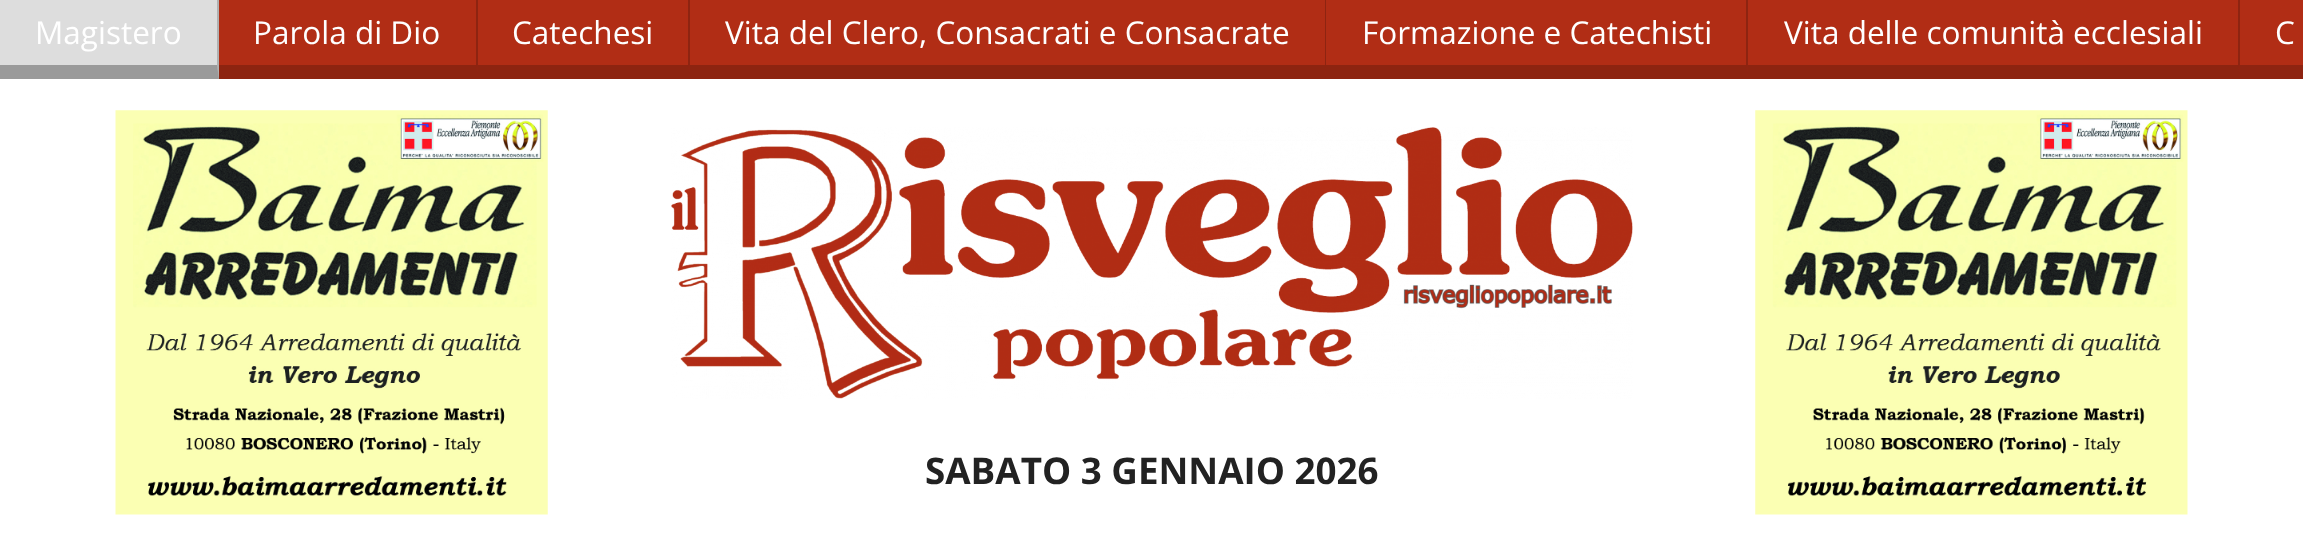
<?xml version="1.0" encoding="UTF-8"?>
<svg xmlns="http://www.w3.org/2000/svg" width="2303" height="548">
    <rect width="100%" height="100%" fill="#FFFFFF"/>
    <rect x="219" y="0" width="2084" height="79" fill="#B12D15"/>
    <rect x="0" y="0" width="219" height="79" fill="#DDDDDD"/>
    <path d="M 219 0 V 79 L 217 65 V 0 Z" fill="#B1B1B1"/>
    <path d="M 219 79 H 0 V 65 H 217 Z" fill="#000000" fill-opacity="0.3"/>
    <text x="35" y="44" font-family="Open Sans" font-size="31.5" fill="#FFFFFF">Magistero</text>
    <path d="M 478 0 V 79 L 476 65 V 0 Z" fill="#8E2411"/>
    <path d="M 478 79 H 219 V 65 H 476 Z" fill="#000000" fill-opacity="0.2"/>
    <text x="253" y="44" font-family="Open Sans" font-size="31.5" fill="#FFFFFF">Parola di Dio</text>
    <path d="M 690 0 V 79 L 688 65 V 0 Z" fill="#8E2411"/>
    <path d="M 690 79 H 478 V 65 H 688 Z" fill="#000000" fill-opacity="0.2"/>
    <text x="512" y="44" font-family="Open Sans" font-size="31.5" fill="#FFFFFF">Catechesi</text>
    <path d="M 1326 0 V 79 L 1325 65 V 0 Z" fill="#8E2411"/>
    <path d="M 1326 79 H 690 V 65 H 1325 Z" fill="#000000" fill-opacity="0.2"/>
    <text x="725" y="44" font-family="Open Sans" font-size="31.5" fill="#FFFFFF">Vita del Clero, Consacrati e Consacrate</text>
    <path d="M 1748 0 V 79 L 1746 65 V 0 Z" fill="#8E2411"/>
    <path d="M 1748 79 H 1326 V 65 H 1746 Z" fill="#000000" fill-opacity="0.2"/>
    <text x="1362" y="44" font-family="Open Sans" font-size="31.5" fill="#FFFFFF">Formazione e Catechisti</text>
    <path d="M 2240 0 V 79 L 2238 65 V 0 Z" fill="#8E2411"/>
    <path d="M 2240 79 H 1748 V 65 H 2238 Z" fill="#000000" fill-opacity="0.2"/>
    <text x="1784" y="44" font-family="Open Sans" font-size="31.5" fill="#FFFFFF">Vita delle comunità ecclesiali</text>
    <path d="M 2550 79 H 2240 V 65 H 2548 Z" fill="#8E2411"/>
    <text x="2275" y="44" font-family="Open Sans" font-size="31.5" fill="#FFFFFF">C</text>
    <image x="115" y="110" width="433" height="405" href="img_01.png"/>
    <image x="671" y="127" width="962" height="272" href="img_02.png"/>
    <text x="925" y="484" font-family="Open Sans" font-size="36.75" font-weight="700" fill="#222222">SABATO 3 GENNAIO 2026</text>
    <image x="1755" y="110" width="433" height="405" href="img_03.png"/>
</svg>
